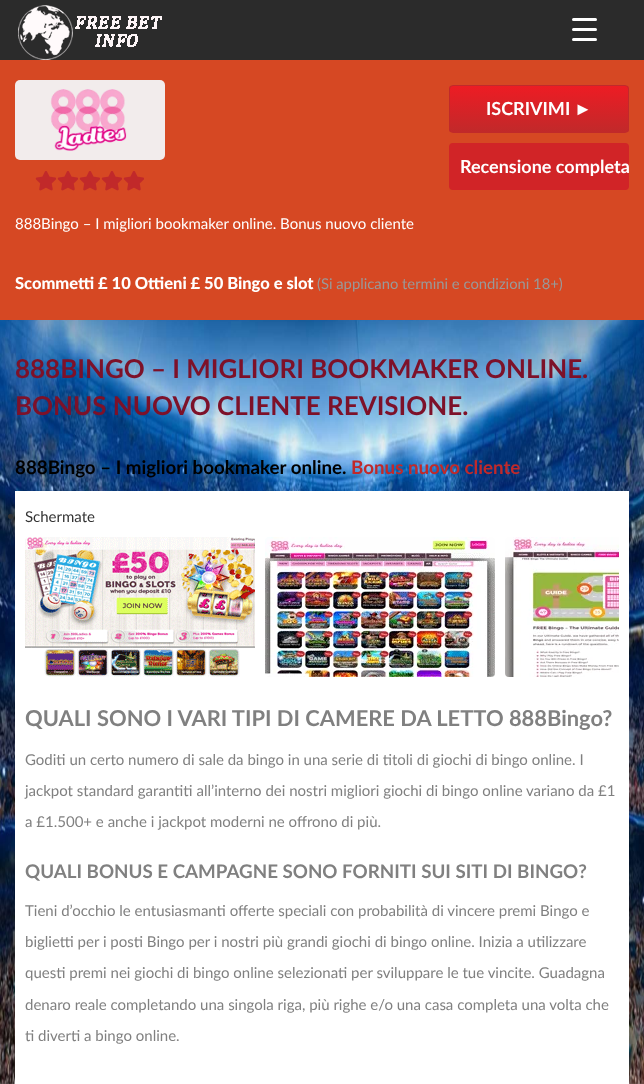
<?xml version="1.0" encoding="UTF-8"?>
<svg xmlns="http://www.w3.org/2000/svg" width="644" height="1084">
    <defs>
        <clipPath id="clip1"><rect x="449" y="85" width="180" height="48" rx="4"/></clipPath>
        <linearGradient id="g1" gradientUnits="userSpaceOnUse" x1="539" y1="86" x2="539" y2="132"><stop offset="0" stop-color="#ED1C24"/><stop offset="1" stop-color="#C1292A"/></linearGradient>
    </defs>
    <rect width="100%" height="100%" fill="#FFFFFF"/>
    <rect x="0" y="0" width="644" height="60" fill="#2B2B2B"/>
    <rect x="572" y="28" width="25" height="3" rx="1.5" fill="#FFFFFF"/>
    <rect x="572" y="18" width="25" height="3" rx="1.5" fill="#FFFFFF"/>
    <rect x="572" y="38" width="25" height="3" rx="1.5" fill="#FFFFFF"/>
    <image x="0" y="320" width="644" height="764" href="img_01.png"/>
    <image x="18" y="5" width="144" height="55" href="img_02.png"/>
    <rect x="0" y="60" width="644" height="260" fill="#D64823"/>
    <rect x="15" y="80" width="150" height="80" rx="5" fill="#F2ECEC"/>
    <image x="50" y="89" width="77" height="62" href="img_03.png"/>
    <image x="35" y="171" width="21" height="20" href="img_04.png"/>
    <image x="57" y="171" width="21" height="20" href="img_04.png"/>
    <image x="79" y="171" width="21" height="20" href="img_04.png"/>
    <image x="101" y="171" width="21" height="20" href="img_04.png"/>
    <image x="123" y="171" width="21" height="20" href="img_04.png"/>
    <g clip-path="url(#clip1)">
        <rect x="449" y="86" width="180" height="46" fill="url(#g1)"/>
    </g>
    <rect x="449.5" y="85.5" width="179" height="47" rx="3.5" fill="none" stroke="#C1292A"/>
    <text x="486" y="115" font-family="Lato" font-size="18" font-weight="700" fill="#FFFFFF">ISCRIVIMI</text>
    <text x="574" y="115" font-family="Liberation Sans" font-size="18" font-weight="700" fill="#FFFFFF">►</text>
    <rect x="449" y="143" width="180" height="47" rx="4" fill="#D12427"/>
    <text x="460" y="173" font-family="Lato" font-size="18" font-weight="700" fill="#FFFFFF">Recensione completa</text>
    <text x="15" y="229" font-family="Lato" font-size="15" fill="#FFFFFF">888Bingo – I migliori bookmaker online. Bonus nuovo cliente</text>
    <text x="15" y="289" font-family="Lato" font-size="16.5" font-weight="900" fill="#FFFFFF">Scommetti £ 10 Ottieni £ 50 Bingo e slot</text>
    <text x="317" y="289" font-family="Lato" font-size="14.8" fill="#999999">(Si applicano termini e condizioni 18+)</text>
    <text font-family="Lato" font-size="25.95" font-weight="700" fill="#7D1129">
        <tspan x="15" y="378">888BINGO – I MIGLIORI BOOKMAKER ONLINE.</tspan>
        <tspan x="15" y="415">BONUS NUOVO CLIENTE REVISIONE.</tspan>
    </text>
    <text x="15" y="474" font-family="Lato" font-size="18.75" font-weight="700" fill="#000000">888Bingo – I migliori bookmaker online.</text>
    <text x="351" y="474" font-family="Lato" font-size="18.75" font-weight="700" fill="#C1292A">Bonus nuovo cliente</text>
    <rect x="15" y="491" width="614" height="593" fill="#FFFFFF"/>
    <circle cx="10.5" cy="516.5" r="2.5" fill="#333333"/>
    <text x="25" y="522" font-family="Lato" font-size="15" fill="#333333">Schermate</text>
    <image x="25" y="537" width="230" height="140" href="img_05.png"/>
    <image x="265" y="537" width="230" height="140" href="img_06.png"/>
    <image x="505" y="537" width="114" height="140" href="img_07.png"/>
    <text x="25" y="726" font-family="Lato" font-size="21.9" font-weight="700" fill="#808080">QUALI SONO I VARI TIPI DI CAMERE DA LETTO 888Bingo?</text>
    <text x="25" y="765" font-family="Lato" font-size="15" fill="#808080">Goditi un certo numero di sale da bingo in una serie di titoli di giochi di bingo online. I</text>
    <text x="25" y="796" font-family="Lato" font-size="15" fill="#808080">jackpot standard garantiti all’interno dei nostri migliori giochi di bingo online variano da £1</text>
    <text x="25" y="827" font-family="Lato" font-size="15" fill="#808080">a £1.500+ e anche i jackpot moderni ne offrono di più.</text>
    <text x="25" y="878" font-family="Lato" font-size="18.75" font-weight="700" fill="#808080">QUALI BONUS E CAMPAGNE SONO FORNITI SUI SITI DI BINGO?</text>
    <text x="25" y="916" font-family="Lato" font-size="15" fill="#808080">Tieni d’occhio le entusiasmanti offerte speciali con probabilità di vincere premi Bingo e</text>
    <text x="25" y="947" font-family="Lato" font-size="15" fill="#808080">biglietti per i posti Bingo per i nostri più grandi giochi di bingo online. Inizia a utilizzare</text>
    <text x="25" y="978" font-family="Lato" font-size="15" fill="#808080">questi premi nei giochi di bingo online selezionati per sviluppare le tue vincite. Guadagna</text>
    <text x="25" y="1010" font-family="Lato" font-size="15" fill="#808080">denaro reale completando una singola riga, più righe e/o una casa completa una volta che</text>
    <text x="25" y="1041" font-family="Lato" font-size="15" fill="#808080">ti diverti a bingo online.</text>
</svg>
